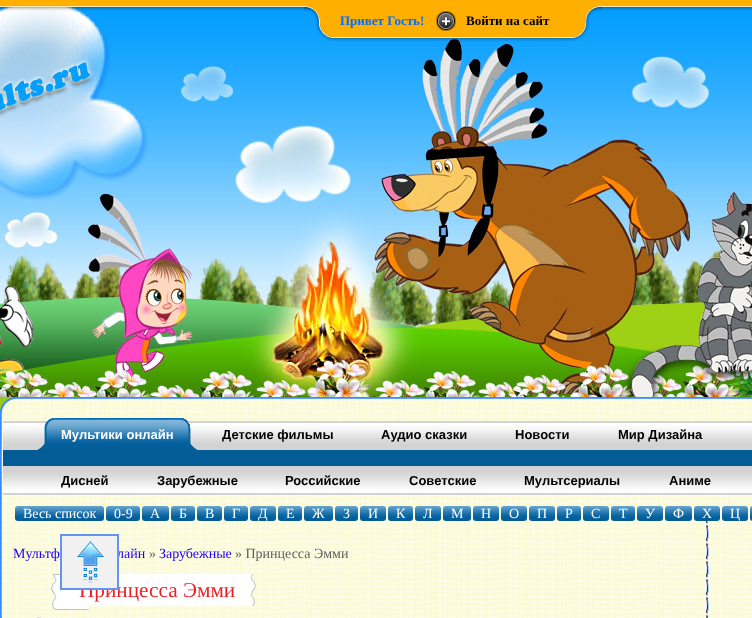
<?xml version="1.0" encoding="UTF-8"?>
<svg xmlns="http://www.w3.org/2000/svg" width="752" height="618">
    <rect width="100%" height="100%" fill="#FFFFFF"/>
    <image x="0" y="7" width="752" height="404" href="img_07.png"/>
    <image x="0" y="0" width="752" height="11" href="img_01.png"/>
    <image x="304" y="6" width="30" height="36" href="img_02.png"/>
    <image x="334" y="6" width="96" height="36" href="img_03.png"/>
    <text x="340" y="25" font-family="Liberation Serif" font-size="13" font-weight="700" fill="#006EFF">Привет Гость!</text>
    <image x="430" y="6" width="142" height="36" href="img_04.png"/>
    <image x="436" y="11" width="20" height="20" href="img_05.png"/>
    <text x="466" y="25" font-family="Liberation Serif" font-size="13" font-weight="700" fill="#000000">Войти на сайт</text>
    <image x="572" y="6" width="30" height="35" href="img_06.png"/>
    <image x="0" y="397" width="752" height="15" href="img_08.png"/>
    <image x="0" y="412" width="752" height="206" href="img_09.png"/>
    <image x="3" y="421" width="749" height="37" href="img_10.png"/>
    <image x="37" y="418" width="16" height="40" href="img_11.png"/>
    <image x="53" y="418" width="145" height="40" href="img_12.png"/>
    <text x="61" y="439" font-family="Liberation Sans" font-size="13" font-weight="700" fill="#FFFFFF">Мультики онлайн</text>
    <text x="222" y="439" font-family="Liberation Sans" font-size="13" font-weight="700" fill="#000000">Детские фильмы</text>
    <text x="381" y="439" font-family="Liberation Sans" font-size="13" font-weight="700" fill="#000000">Аудио сказки</text>
    <text x="515" y="439" font-family="Liberation Sans" font-size="13" font-weight="700" fill="#000000">Новости</text>
    <text x="618" y="439" font-family="Liberation Sans" font-size="13" font-weight="700" fill="#000000">Мир Дизайна</text>
    <image x="3" y="458" width="749" height="37" href="img_13.png"/>
    <text x="61" y="485" font-family="Liberation Sans" font-size="13" font-weight="700" fill="#000000">Дисней</text>
    <text x="157" y="485" font-family="Liberation Sans" font-size="13" font-weight="700" fill="#000000">Зарубежные</text>
    <text x="285" y="485" font-family="Liberation Sans" font-size="13" font-weight="700" fill="#000000">Российские</text>
    <text x="409" y="485" font-family="Liberation Sans" font-size="13" font-weight="700" fill="#000000">Советские</text>
    <text x="524" y="485" font-family="Liberation Sans" font-size="13" font-weight="700" fill="#000000">Мультсериалы</text>
    <text x="669" y="485" font-family="Liberation Sans" font-size="13" font-weight="700" fill="#000000">Аниме</text>
    <image x="15" y="506" width="89" height="15" href="img_14.png"/>
    <text x="23" y="518" font-family="Liberation Serif" font-size="14" fill="#FFFFFF">Весь список</text>
    <image x="106" y="506" width="34" height="15" href="img_15.png"/>
    <text x="114" y="518" font-family="Liberation Serif" font-size="14" fill="#FFFFFF">0-9</text>
    <image x="142" y="506" width="27" height="15" href="img_16.png"/>
    <text x="150" y="518" font-family="Liberation Serif" font-size="14" fill="#FFFFFF">А</text>
    <image x="171" y="506" width="24" height="15" href="img_17.png"/>
    <text x="179" y="518" font-family="Liberation Serif" font-size="14" fill="#FFFFFF">Б</text>
    <image x="197" y="506" width="25" height="15" href="img_18.png"/>
    <text x="205" y="518" font-family="Liberation Serif" font-size="14" fill="#FFFFFF">В</text>
    <image x="224" y="506" width="24" height="15" href="img_19.png"/>
    <text x="232" y="518" font-family="Liberation Serif" font-size="14" fill="#FFFFFF">Г</text>
    <image x="250" y="506" width="26" height="15" href="img_20.png"/>
    <text x="258" y="518" font-family="Liberation Serif" font-size="14" fill="#FFFFFF">Д</text>
    <image x="278" y="506" width="24" height="15" href="img_21.png"/>
    <text x="286" y="518" font-family="Liberation Serif" font-size="14" fill="#FFFFFF">Е</text>
    <image x="304" y="506" width="29" height="15" href="img_22.png"/>
    <text x="312" y="518" font-family="Liberation Serif" font-size="14" fill="#FFFFFF">Ж</text>
    <image x="335" y="506" width="23" height="15" href="img_23.png"/>
    <text x="343" y="518" font-family="Liberation Serif" font-size="14" fill="#FFFFFF">З</text>
    <image x="360" y="506" width="26" height="15" href="img_24.png"/>
    <text x="368" y="518" font-family="Liberation Serif" font-size="14" fill="#FFFFFF">И</text>
    <image x="388" y="506" width="25" height="15" href="img_25.png"/>
    <text x="396" y="518" font-family="Liberation Serif" font-size="14" fill="#FFFFFF">К</text>
    <image x="415" y="506" width="26" height="15" href="img_26.png"/>
    <text x="423" y="518" font-family="Liberation Serif" font-size="14" fill="#FFFFFF">Л</text>
    <image x="443" y="506" width="28" height="15" href="img_27.png"/>
    <text x="451" y="518" font-family="Liberation Serif" font-size="14" fill="#FFFFFF">М</text>
    <image x="473" y="506" width="26" height="15" href="img_28.png"/>
    <text x="481" y="518" font-family="Liberation Serif" font-size="14" fill="#FFFFFF">Н</text>
    <image x="501" y="506" width="26" height="15" href="img_29.png"/>
    <text x="509" y="518" font-family="Liberation Serif" font-size="14" fill="#FFFFFF">О</text>
    <image x="529" y="506" width="26" height="15" href="img_30.png"/>
    <text x="537" y="518" font-family="Liberation Serif" font-size="14" fill="#FFFFFF">П</text>
    <image x="557" y="506" width="24" height="15" href="img_31.png"/>
    <text x="565" y="518" font-family="Liberation Serif" font-size="14" fill="#FFFFFF">Р</text>
    <image x="583" y="506" width="26" height="15" href="img_32.png"/>
    <text x="591" y="518" font-family="Liberation Serif" font-size="14" fill="#FFFFFF">С</text>
    <image x="611" y="506" width="24" height="15" href="img_33.png"/>
    <text x="619" y="518" font-family="Liberation Serif" font-size="14" fill="#FFFFFF">Т</text>
    <image x="637" y="506" width="26" height="15" href="img_34.png"/>
    <text x="645" y="518" font-family="Liberation Serif" font-size="14" fill="#FFFFFF">У</text>
    <image x="665" y="506" width="27" height="15" href="img_35.png"/>
    <text x="673" y="518" font-family="Liberation Serif" font-size="14" fill="#FFFFFF">Ф</text>
    <image x="694" y="506" width="26" height="15" href="img_36.png"/>
    <text x="702" y="518" font-family="Liberation Serif" font-size="14" fill="#FFFFFF">Х</text>
    <image x="722" y="506" width="26" height="15" href="img_37.png"/>
    <text x="730" y="518" font-family="Liberation Serif" font-size="14" fill="#FFFFFF">Ц</text>
    <image x="750" y="506" width="2" height="15" href="img_38.png"/>
    <image x="706" y="521" width="3" height="97" href="img_39.png"/>
    <text x="13" y="558" font-family="Liberation Serif" font-size="14" fill="#1D00FF">Mультф</text>
    <text x="117" y="558" font-family="Liberation Serif" font-size="14" fill="#1D00FF">лайн</text>
    <text x="149" y="558" font-family="Liberation Serif" font-size="14" fill="#616161">»</text>
    <text x="159" y="558" font-family="Liberation Serif" font-size="14" fill="#1D00FF">Зарубежные</text>
    <text x="235" y="558" font-family="Liberation Serif" font-size="14" fill="#616161">» Принцесса Эмми</text>
    <image x="36" y="565" width="53" height="53" href="img_40.png"/>
    <image x="69" y="574" width="187" height="32" href="img_41.png"/>
    <text x="79" y="597" font-family="Liberation Serif" font-size="21.25" fill="#ED1E24">Принцесса Эмми</text>
    <rect x="61" y="535" width="57" height="54" fill="#F1F1F1" stroke="#6495ED" stroke-width="2"/>
    <image x="77" y="541" width="27" height="42" href="img_42.png"/>
</svg>
